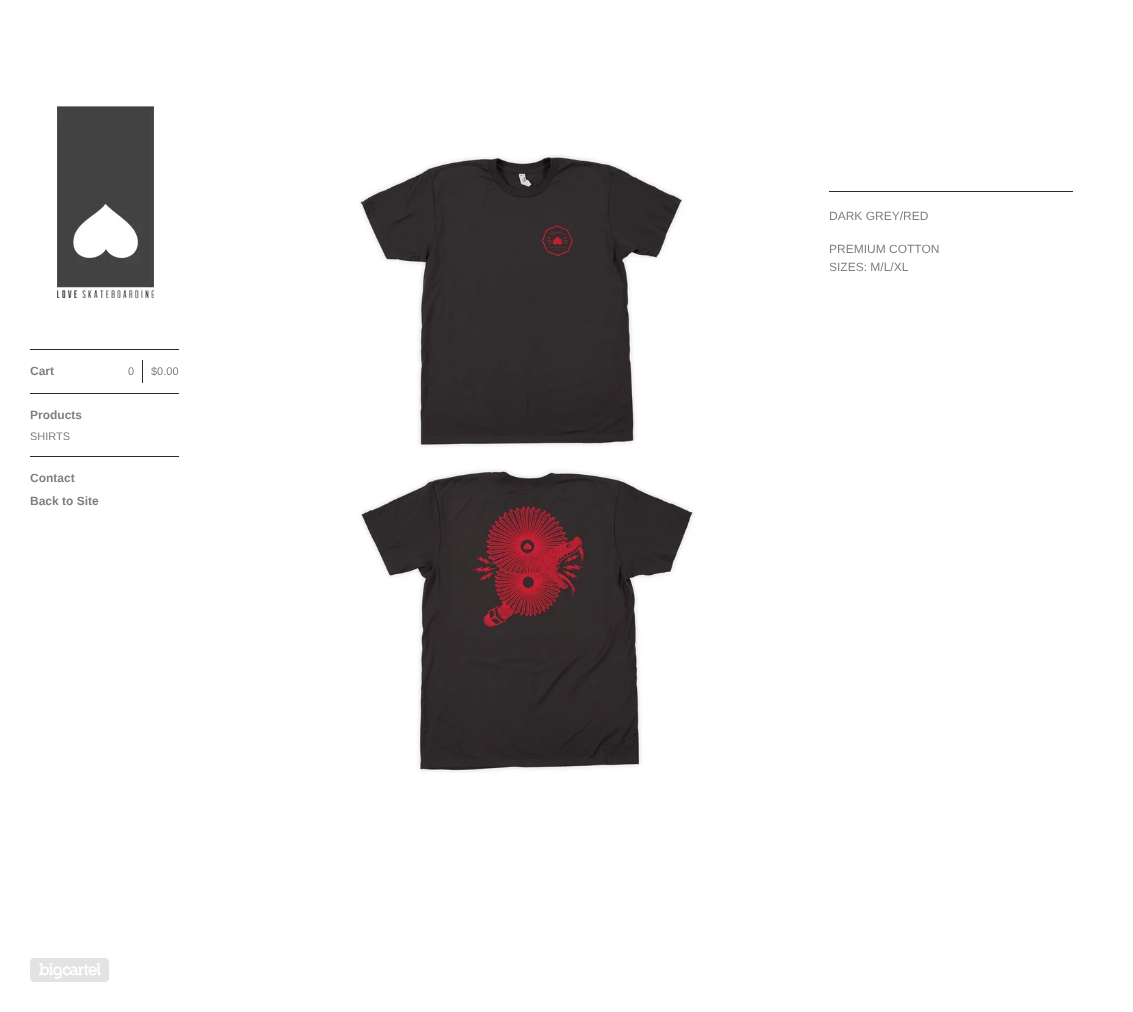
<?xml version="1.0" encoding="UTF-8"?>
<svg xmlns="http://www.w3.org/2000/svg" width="1133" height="1012">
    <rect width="100%" height="100%" fill="#FFFFFF"/>
    <image x="359" y="154" width="336" height="619" href="img_01.png"/>
    <rect x="829" y="191" width="244" height="1" fill="#2B2B2B"/>
    <text x="829" y="220" font-family="Liberation Sans" font-size="12" fill="#808080">DARK GREY/RED</text>
    <text font-family="Liberation Sans" font-size="12" fill="#808080">
        <tspan x="829" y="253">PREMIUM COTTON</tspan>
        <tspan x="829" y="271">SIZES: M/L/XL</tspan>
    </text>
    <image x="54" y="106" width="100" height="195" href="img_02.png"/>
    <rect x="30" y="349" width="149" height="1" fill="#2B2B2B"/>
    <text x="30" y="375" font-family="Liberation Sans" font-size="12" font-weight="700" fill="#808080">Cart</text>
    <text x="128" y="375" font-family="Liberation Sans" font-size="11" fill="#808080">0</text>
    <rect x="142" y="360" width="1" height="23" fill="#2B2B2B"/>
    <text x="151" y="375" font-family="Liberation Sans" font-size="11" fill="#808080">$0.00</text>
    <rect x="30" y="393" width="149" height="1" fill="#2B2B2B"/>
    <text x="30" y="419" font-family="Liberation Sans" font-size="12" font-weight="700" fill="#808080">Products</text>
    <text x="30" y="440" font-family="Liberation Sans" font-size="11" fill="#808080">SHIRTS</text>
    <rect x="30" y="456" width="149" height="1" fill="#2B2B2B"/>
    <text font-family="Liberation Sans" font-size="12" font-weight="700" fill="#808080">
        <tspan x="30" y="482">Contact</tspan>
        <tspan x="30" y="505">Back to Site</tspan>
    </text>
    <image x="30" y="958" width="79" height="24" href="img_03.png"/>
</svg>
